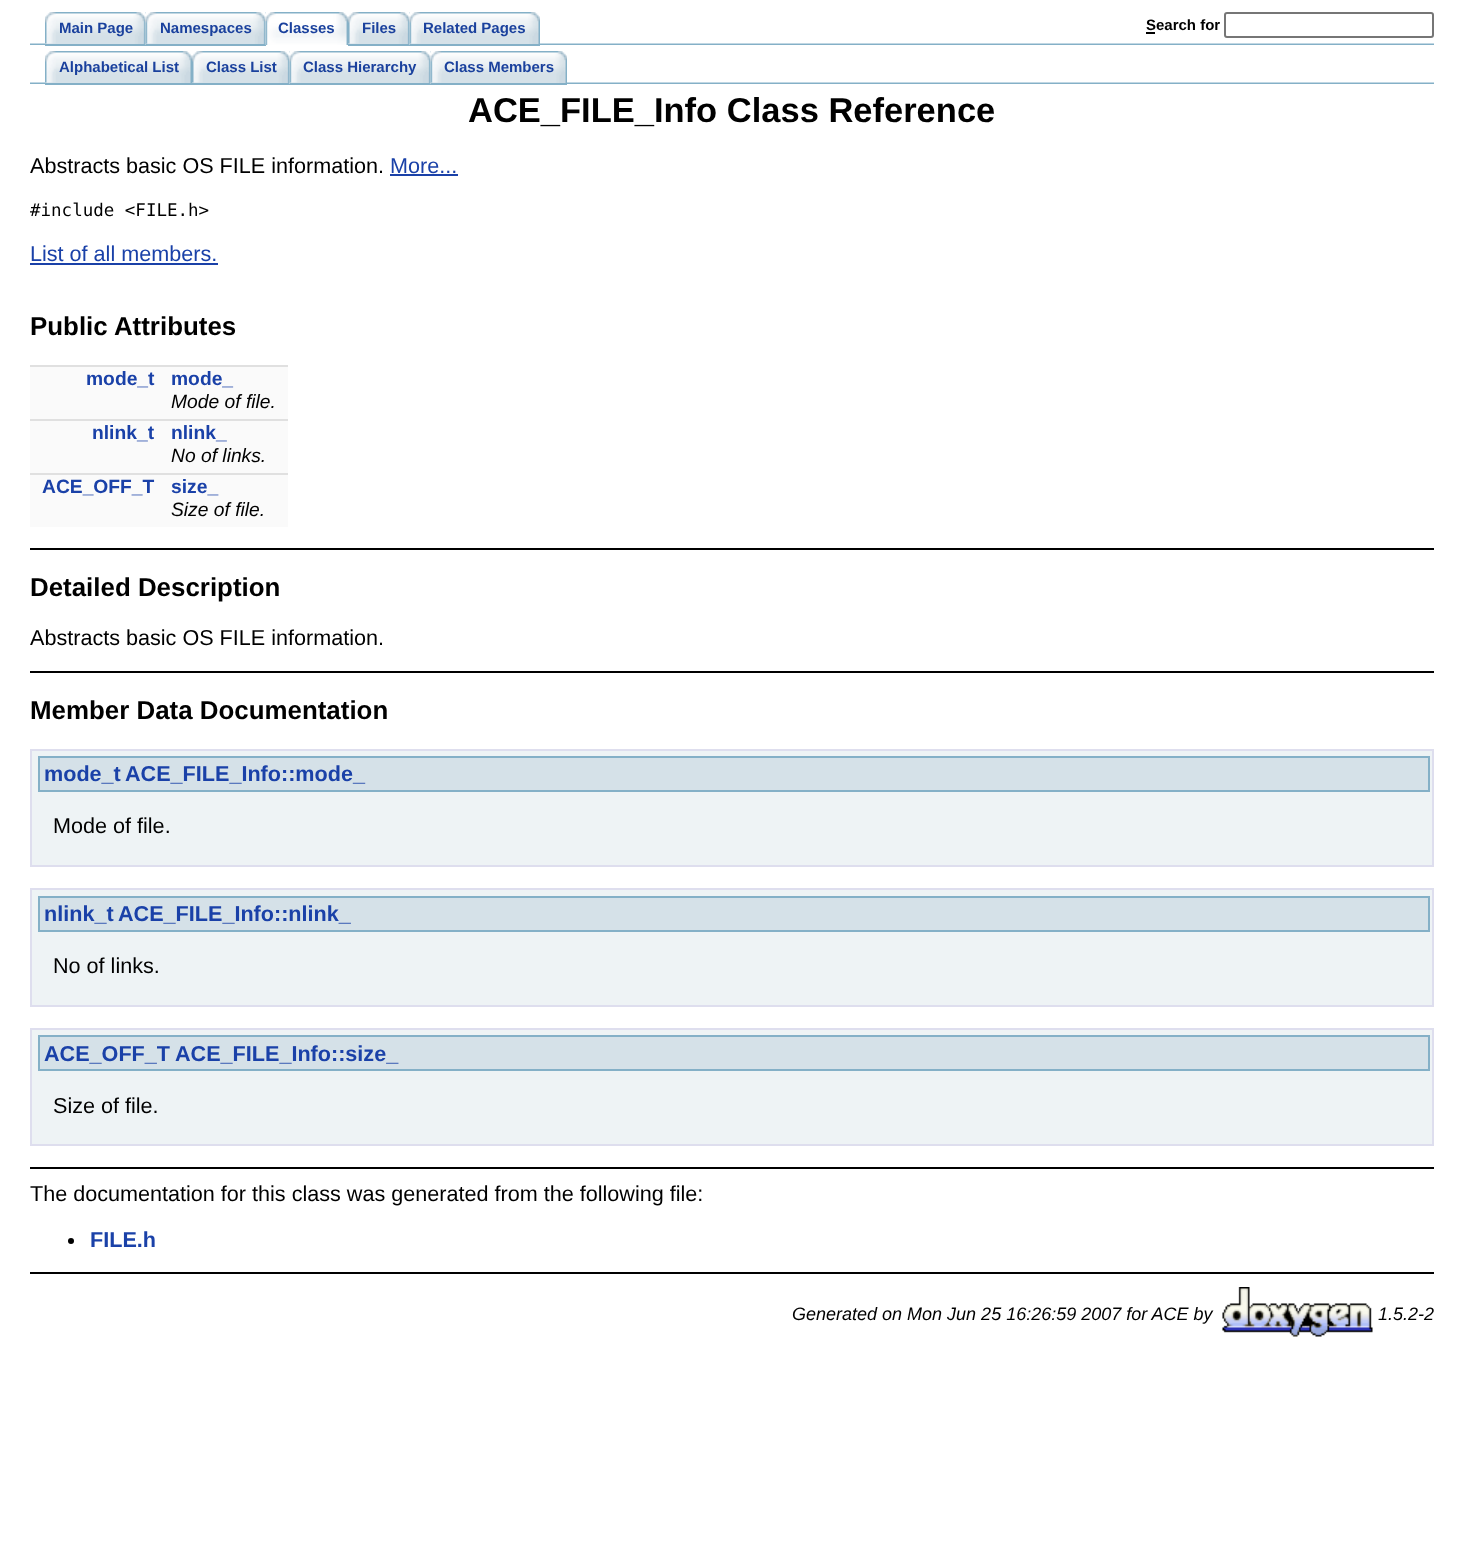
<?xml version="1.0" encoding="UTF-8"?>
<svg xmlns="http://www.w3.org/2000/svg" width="1464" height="1558">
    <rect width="100%" height="100%" fill="#FFFFFF"/>
    <image x="30" y="43" width="1404" height="2" href="img_01.png"/>
    <image x="45" y="12" width="101" height="32" href="img_02.png"/>
    <rect x="45" y="45" width="101" height="1" fill="#84B0C7"/>
    <image x="45" y="12" width="11" height="32" href="img_03.png"/>
    <text x="59" y="33" font-family="Liberation Sans" font-size="15" font-weight="700" fill="#1A419D">Main Page</text>
    <image x="145" y="12" width="121" height="33" href="img_04.png"/>
    <rect x="146" y="44" width="120" height="2" fill="#84B0C7"/>
    <image x="145" y="12" width="12" height="32" href="img_05.png"/>
    <text x="160" y="33" font-family="Liberation Sans" font-size="15" font-weight="700" fill="#1A419D">Namespaces</text>
    <image x="265" y="12" width="83" height="33" href="img_06.png"/>
    <image x="265" y="12" width="11" height="33" href="img_07.png"/>
    <text x="278" y="33" font-family="Liberation Sans" font-size="15" font-weight="700" fill="#1A419D">Classes</text>
    <image x="348" y="12" width="62" height="32" href="img_08.png"/>
    <rect x="348" y="45" width="62" height="1" fill="#84B0C7"/>
    <image x="348" y="12" width="11" height="32" href="img_09.png"/>
    <text x="362" y="33" font-family="Liberation Sans" font-size="15" font-weight="700" fill="#1A419D">Files</text>
    <image x="409" y="12" width="131" height="33" href="img_10.png"/>
    <rect x="410" y="44" width="130" height="2" fill="#84B0C7"/>
    <image x="409" y="12" width="12" height="32" href="img_11.png"/>
    <text x="423" y="33" font-family="Liberation Sans" font-size="15" font-weight="700" fill="#1A419D">Related Pages</text>
    <text x="1146" y="30" font-family="Liberation Sans" font-size="15" font-weight="700" fill="#000000">Search for</text>
    <rect x="1146" y="32" width="9" height="2" fill="#000000"/>
    <rect x="1225" y="13" width="208" height="24" rx="2" fill="none" stroke="#767676" stroke-width="2"/>
    <image x="30" y="82" width="1404" height="2" href="img_01.png"/>
    <image x="45" y="51" width="147" height="32" href="img_12.png"/>
    <rect x="45" y="84" width="245" height="1" fill="#84B0C7"/>
    <image x="45" y="51" width="11" height="32" href="img_03.png"/>
    <text x="59" y="72" font-family="Liberation Sans" font-size="15" font-weight="700" fill="#1A419D">Alphabetical List</text>
    <image x="192" y="51" width="98" height="32" href="img_13.png"/>
    <image x="192" y="51" width="11" height="32" href="img_03.png"/>
    <text x="206" y="72" font-family="Liberation Sans" font-size="15" font-weight="700" fill="#1A419D">Class List</text>
    <image x="289" y="51" width="142" height="33" href="img_14.png"/>
    <rect x="290" y="83" width="141" height="2" fill="#84B0C7"/>
    <image x="289" y="51" width="12" height="32" href="img_11.png"/>
    <text x="303" y="72" font-family="Liberation Sans" font-size="15" font-weight="700" fill="#1A419D">Class Hierarchy</text>
    <image x="430" y="51" width="137" height="33" href="img_15.png"/>
    <rect x="431" y="83" width="136" height="2" fill="#84B0C7"/>
    <image x="430" y="51" width="12" height="32" href="img_11.png"/>
    <text x="444" y="72" font-family="Liberation Sans" font-size="15" font-weight="700" fill="#1A419D">Class Members</text>
    <text x="468" y="122" font-family="Liberation Sans" font-size="34.5" font-weight="700" fill="#000000">ACE_FILE_Info Class Reference</text>
    <text x="30" y="173" font-family="Liberation Sans" font-size="21.6" fill="#000000">Abstracts basic OS FILE information.</text>
    <text x="390" y="173" font-family="Liberation Sans" font-size="21.6" fill="#1A41A8">More...</text>
    <rect x="390" y="174" width="68" height="2" fill="#1A41A8"/>
    <text x="30" y="216" font-family="DejaVu Sans Mono" font-size="17.5" fill="#000000">#include &lt;FILE.h&gt;</text>
    <text x="30" y="261" font-family="Liberation Sans" font-size="21.6" fill="#1A41A8">List of all members.</text>
    <rect x="30" y="263" width="188" height="2" fill="#1A41A8"/>
    <text x="30" y="335" font-family="Liberation Sans" font-size="25.9" font-weight="700" fill="#000000">Public Attributes</text>
    <rect x="30" y="367" width="258" height="23" fill="#FAFAFA"/>
    <rect x="30" y="365" width="258" height="2" fill="#E0E0E0"/>
    <text x="86" y="385" font-family="Liberation Sans" font-size="19.25" font-weight="700" fill="#1A41A8">mode_t</text>
    <text x="171" y="385" font-family="Liberation Sans" font-size="19.25" font-weight="700" fill="#1A41A8">mode_</text>
    <rect x="30" y="390" width="258" height="29" fill="#FAFAFA"/>
    <text x="171" y="408" font-family="Liberation Sans" font-size="19.25" font-style="italic" fill="#000000">Mode of file.</text>
    <rect x="30" y="421" width="258" height="23" fill="#FAFAFA"/>
    <rect x="30" y="419" width="258" height="2" fill="#E0E0E0"/>
    <text x="92" y="439" font-family="Liberation Sans" font-size="19.25" font-weight="700" fill="#1A41A8">nlink_t</text>
    <text x="171" y="439" font-family="Liberation Sans" font-size="19.25" font-weight="700" fill="#1A41A8">nlink_</text>
    <rect x="30" y="444" width="258" height="29" fill="#FAFAFA"/>
    <text x="171" y="462" font-family="Liberation Sans" font-size="19.25" font-style="italic" fill="#000000">No of links.</text>
    <rect x="30" y="475" width="258" height="23" fill="#FAFAFA"/>
    <rect x="30" y="473" width="258" height="2" fill="#E0E0E0"/>
    <text x="42" y="493" font-family="Liberation Sans" font-size="19.25" font-weight="700" fill="#1A41A8">ACE_OFF_T</text>
    <text x="171" y="493" font-family="Liberation Sans" font-size="19.25" font-weight="700" fill="#1A41A8">size_</text>
    <rect x="30" y="498" width="258" height="29" fill="#FAFAFA"/>
    <text x="171" y="516" font-family="Liberation Sans" font-size="19.25" font-style="italic" fill="#000000">Size of file.</text>
    <rect x="30" y="548" width="1404" height="2" fill="#000000"/>
    <text x="30" y="596" font-family="Liberation Sans" font-size="25.9" font-weight="700" fill="#000000">Detailed Description</text>
    <text x="30" y="645" font-family="Liberation Sans" font-size="21.6" fill="#000000">Abstracts basic OS FILE information.</text>
    <rect x="30" y="671" width="1404" height="2" fill="#000000"/>
    <text x="30" y="719" font-family="Liberation Sans" font-size="25.9" font-weight="700" fill="#000000">Member Data Documentation</text>
    <rect x="31" y="750" width="1402" height="116" fill="#EEF3F5" stroke="#DEDEEE" stroke-width="2"/>
    <rect x="39" y="757" width="1390" height="34" fill="#D5E1E8" stroke="#84B0C7" stroke-width="2"/>
    <text x="44" y="781" font-family="Liberation Sans" font-size="21.6" font-weight="700" fill="#1A41A8">mode_t</text>
    <text x="125" y="781" font-family="Liberation Sans" font-size="21.6" font-weight="700" fill="#1A41A8">ACE_FILE_Info::mode_</text>
    <text x="53" y="833" font-family="Liberation Sans" font-size="21.6" fill="#000000">Mode of file.</text>
    <rect x="31" y="889" width="1402" height="117" fill="#EEF3F5" stroke="#DEDEEE" stroke-width="2"/>
    <rect x="39" y="897" width="1390" height="34" fill="#D5E1E8" stroke="#84B0C7" stroke-width="2"/>
    <text x="44" y="921" font-family="Liberation Sans" font-size="21.6" font-weight="700" fill="#1A41A8">nlink_t</text>
    <text x="118" y="921" font-family="Liberation Sans" font-size="21.6" font-weight="700" fill="#1A41A8">ACE_FILE_Info::nlink_</text>
    <text x="53" y="973" font-family="Liberation Sans" font-size="21.6" fill="#000000">No of links.</text>
    <rect x="31" y="1029" width="1402" height="116" fill="#EEF3F5" stroke="#DEDEEE" stroke-width="2"/>
    <rect x="39" y="1036" width="1390" height="34" fill="#D5E1E8" stroke="#84B0C7" stroke-width="2"/>
    <text x="44" y="1061" font-family="Liberation Sans" font-size="21.6" font-weight="700" fill="#1A41A8">ACE_OFF_T</text>
    <text x="175" y="1061" font-family="Liberation Sans" font-size="21.6" font-weight="700" fill="#1A41A8">ACE_FILE_Info::size_</text>
    <text x="53" y="1113" font-family="Liberation Sans" font-size="21.6" fill="#000000">Size of file.</text>
    <rect x="30" y="1167" width="1404" height="2" fill="#000000"/>
    <text x="30" y="1201" font-family="Liberation Sans" font-size="21.6" fill="#000000">The documentation for this class was generated from the following file:</text>
    <circle cx="71" cy="1241" r="3" fill="#000000"/>
    <text x="90" y="1247" font-family="Liberation Sans" font-size="21.6" font-weight="700" fill="#1A41A8">FILE.h</text>
    <rect x="30" y="1272" width="1404" height="2" fill="#000000"/>
    <text x="792" y="1320" font-family="Liberation Sans" font-size="18" font-style="italic" fill="#000000">Generated on Mon Jun 25 16:26:59 2007 for ACE by</text>
    <image x="1222" y="1287" width="151" height="50" href="img_16.png"/>
    <text x="1378" y="1320" font-family="Liberation Sans" font-size="18" font-style="italic" fill="#000000">1.5.2-2</text>
</svg>
